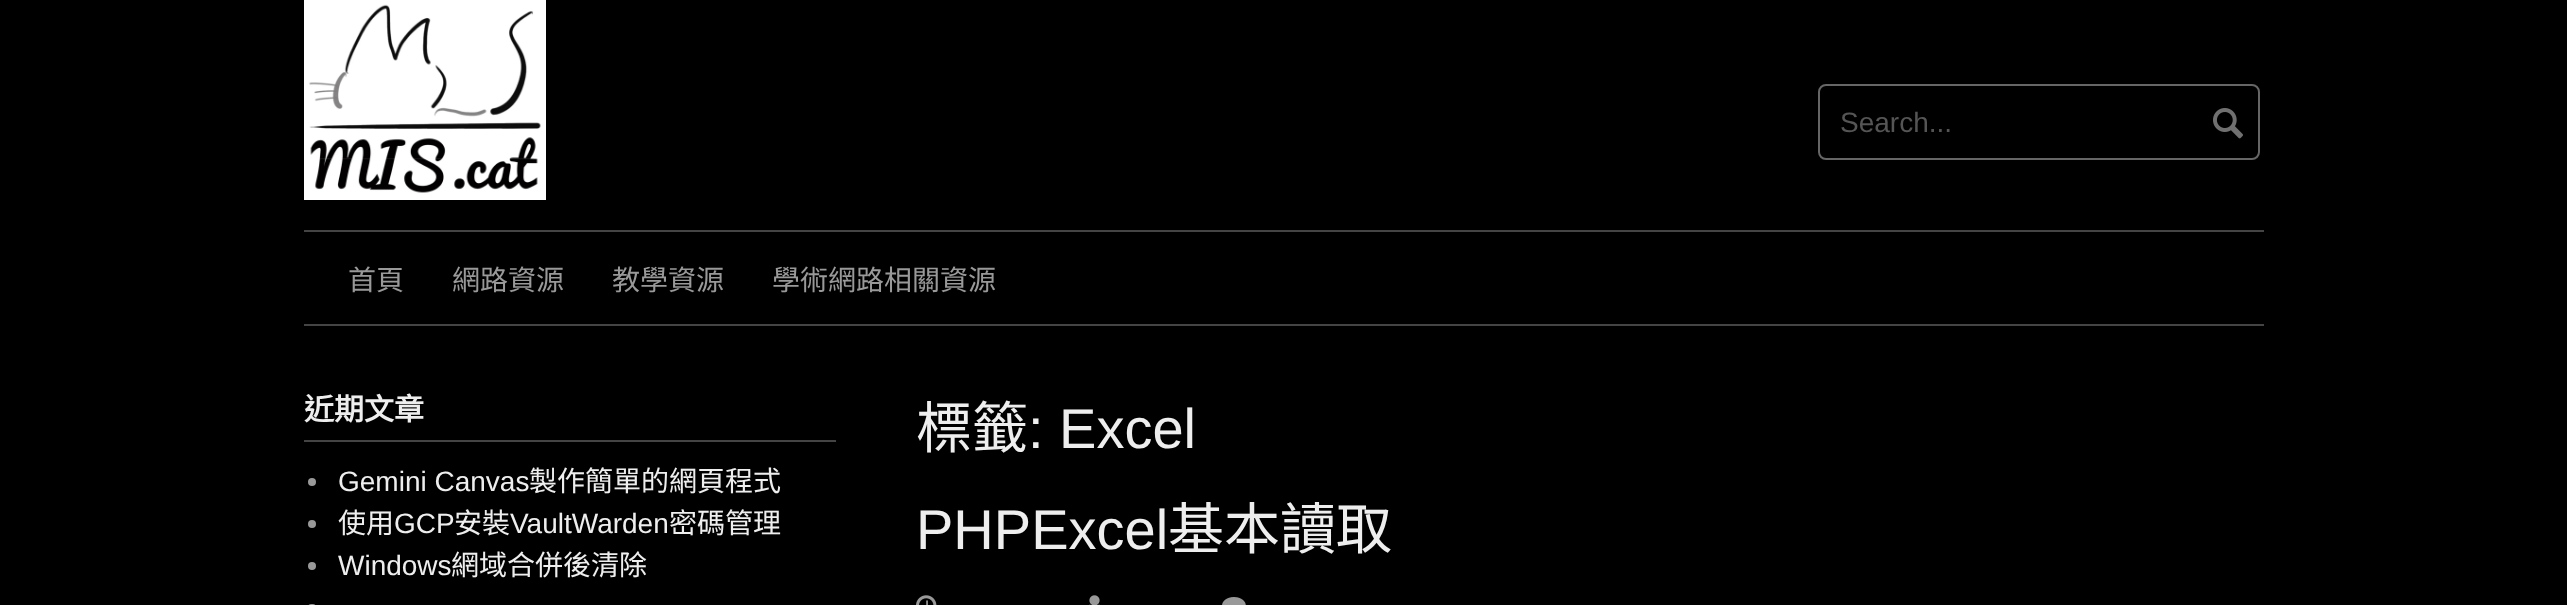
<?xml version="1.0" encoding="UTF-8"?>
<svg xmlns="http://www.w3.org/2000/svg" width="2567" height="605">
    <rect width="100%" height="100%" fill="#000000"/>
    <image x="304" y="0" width="242" height="200" href="img_01.png"/>
    <rect x="1819" y="85" width="440" height="74" rx="7" fill="none" stroke="#666666" stroke-width="2"/>
    <text x="1840" y="132" font-family="Liberation Sans" font-size="28" fill="#555555">Search...</text>
    <image x="2213" y="108" width="30" height="31" href="img_02.png"/>
    <rect x="304" y="230" width="1960" height="2" fill="#444444"/>
    <rect x="304" y="324" width="1960" height="2" fill="#444444"/>
    <text x="348" y="290" font-family="Noto Sans CJK TC" font-size="28" fill="#999999">首頁</text>
    <text x="452" y="290" font-family="Noto Sans CJK TC" font-size="28" fill="#999999">網路資源</text>
    <text x="612" y="290" font-family="Noto Sans CJK TC" font-size="28" fill="#999999">教學資源</text>
    <text x="772" y="290" font-family="Noto Sans CJK TC" font-size="28" fill="#999999">學術網路相關資源</text>
    <rect x="304" y="440" width="532" height="2" fill="#444444"/>
    <text x="304" y="420" font-family="Noto Sans CJK TC" font-size="30" font-weight="700" fill="#EEEEEE">近期文章</text>
    <circle cx="312" cy="482" r="4" fill="#999999"/>
    <text x="338" y="491" font-family="Liberation Sans" font-size="28" fill="#EEEEEE">Gemini Canvas</text>
    <text x="529" y="491" font-family="Noto Sans CJK TC" font-size="28" fill="#EEEEEE">製作簡單的網頁程式</text>
    <circle cx="312" cy="524" r="4" fill="#999999"/>
    <text x="338" y="533" font-family="Noto Sans CJK TC" font-size="28" fill="#EEEEEE">使用</text>
    <text x="394" y="533" font-family="Liberation Sans" font-size="28" fill="#EEEEEE">GCP</text>
    <text x="454" y="533" font-family="Noto Sans CJK TC" font-size="28" fill="#EEEEEE">安裝</text>
    <text x="510" y="533" font-family="Liberation Sans" font-size="28" fill="#EEEEEE">VaultWarden</text>
    <text x="669" y="533" font-family="Noto Sans CJK TC" font-size="28" fill="#EEEEEE">密碼管理</text>
    <circle cx="312" cy="566" r="4" fill="#999999"/>
    <text x="338" y="575" font-family="Liberation Sans" font-size="28" fill="#EEEEEE">Windows</text>
    <text x="451" y="575" font-family="Noto Sans CJK TC" font-size="28" fill="#EEEEEE">網域合併後清除</text>
    <rect x="308" y="604" width="8" height="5" rx="4" fill="#999999"/>
    <text x="916" y="448" font-family="Noto Sans CJK TC" font-size="56" fill="#EEEEEE">標籤</text>
    <text x="1028" y="448" font-family="Liberation Sans" font-size="56" fill="#EEEEEE">: Excel</text>
    <text x="916" y="549" font-family="Liberation Sans" font-size="56" fill="#EEEEEE">PHPExcel</text>
    <text x="1168" y="549" font-family="Noto Sans CJK TC" font-size="56" fill="#EEEEEE">基本讀取</text>
    <image x="916" y="595" width="21" height="10" href="img_03.png"/>
    <image x="1089" y="595" width="11" height="10" href="img_04.png"/>
    <image x="1222" y="597" width="24" height="8" href="img_05.png"/>
</svg>
